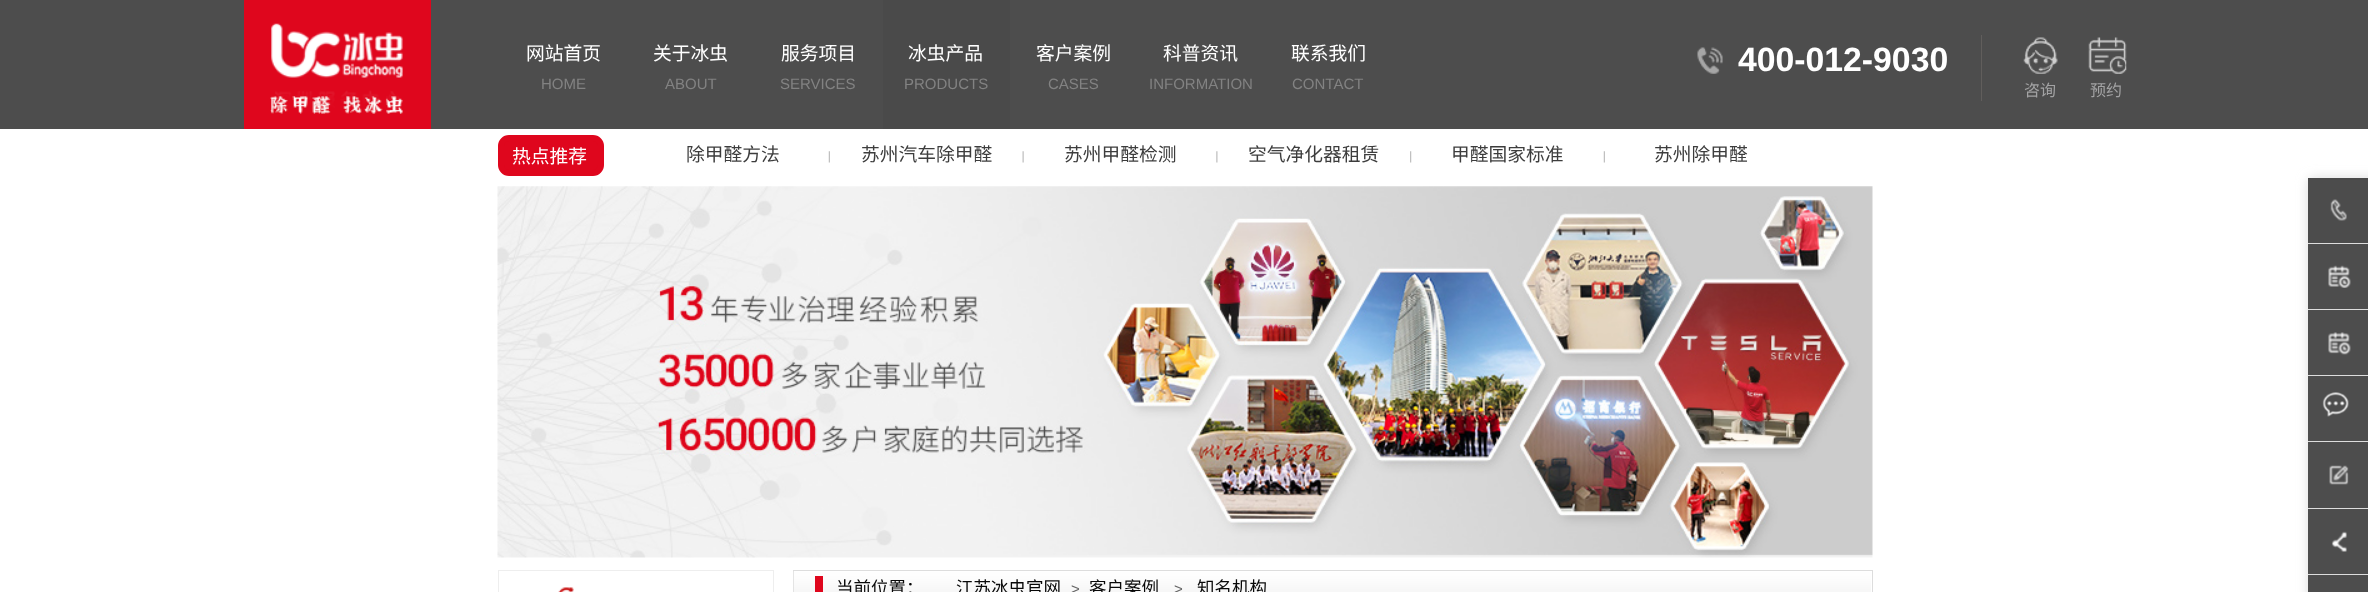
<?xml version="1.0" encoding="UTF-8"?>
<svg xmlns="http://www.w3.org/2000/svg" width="2368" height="592">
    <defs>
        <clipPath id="clip1"><path d="M 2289 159 H 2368 V 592 H 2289 Z M 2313 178 H 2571 V 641 H 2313 C 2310 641 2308 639 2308 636 V 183 C 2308 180 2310 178 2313 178 Z" clip-rule="evenodd"/></clipPath>
        <filter id="blur1" x="-50%" y="-200%" width="200%" height="500%"><feGaussianBlur stdDeviation="6"/></filter>
    </defs>
    <rect width="100%" height="100%" fill="#FFFFFF"/>
    <rect x="0" y="0" width="2368" height="129" fill="#4D4D4D"/>
    <rect x="244" y="0" width="187" height="129" fill="#DF061D"/>
    <image x="270" y="23" width="133" height="91" href="img_01.png"/>
    <text x="526" y="60" font-family="Noto Sans CJK SC" font-size="18.75" fill="#FFFFFF">网站首页</text>
    <text x="541" y="89" font-family="Liberation Sans" font-size="15" fill="#828282">HOME</text>
    <text x="653" y="60" font-family="Noto Sans CJK SC" font-size="18.75" fill="#FFFFFF">关于冰虫</text>
    <text x="665" y="89" font-family="Liberation Sans" font-size="15" fill="#828282">ABOUT</text>
    <text x="781" y="60" font-family="Noto Sans CJK SC" font-size="18.75" fill="#FFFFFF">服务项目</text>
    <text x="780" y="89" font-family="Liberation Sans" font-size="15" fill="#828282">SERVICES</text>
    <rect x="883" y="0" width="127" height="129" fill="#4A4A4A"/>
    <text x="908" y="60" font-family="Noto Sans CJK SC" font-size="18.75" fill="#FFFFFF">冰虫产品</text>
    <text x="904" y="89" font-family="Liberation Sans" font-size="15" fill="#828282">PRODUCTS</text>
    <text x="1036" y="60" font-family="Noto Sans CJK SC" font-size="18.75" fill="#FFFFFF">客户案例</text>
    <text x="1048" y="89" font-family="Liberation Sans" font-size="15" fill="#828282">CASES</text>
    <text x="1163" y="60" font-family="Noto Sans CJK SC" font-size="18.75" fill="#FFFFFF">科普资讯</text>
    <text x="1149" y="89" font-family="Liberation Sans" font-size="15" fill="#828282">INFORMATION</text>
    <text x="1291" y="60" font-family="Noto Sans CJK SC" font-size="18.75" fill="#FFFFFF">联系我们</text>
    <text x="1292" y="89" font-family="Liberation Sans" font-size="15" fill="#828282">CONTACT</text>
    <image x="1697" y="47" width="26" height="27" href="img_02.png"/>
    <text x="1738" y="71" font-family="Liberation Sans" font-size="33.75" font-weight="700" fill="#FFFFFF">400-012-9030</text>
    <rect x="1981" y="35" width="1" height="66" fill="#615E5C"/>
    <image x="2023" y="37" width="35" height="37" href="img_03.png"/>
    <text x="2024" y="96" font-family="Noto Sans CJK SC" font-size="16" fill="#A3A3A4">咨询</text>
    <image x="2088" y="37" width="39" height="37" href="img_04.png"/>
    <text x="2090" y="96" font-family="Noto Sans CJK SC" font-size="16" fill="#A3A3A4">预约</text>
    <g clip-path="url(#clip1)">
        <rect x="2308" y="178" width="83" height="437" rx="5" fill="#DDDDDD" filter="url(#blur1)"/>
    </g>
    <rect x="2308" y="178" width="60" height="65" fill="#000000" fill-opacity="0.7"/>
    <rect x="2308" y="243" width="60" height="1" fill="#DDDDDD"/>
    <image x="2330" y="199" width="17" height="22" href="img_05.png"/>
    <rect x="2308" y="244" width="60" height="65" fill="#4D4D4D"/>
    <rect x="2308" y="309" width="60" height="1" fill="#DDDDDD"/>
    <image x="2328" y="265" width="23" height="23" href="img_06.png"/>
    <rect x="2308" y="310" width="60" height="65" fill="#4D4D4D"/>
    <rect x="2308" y="375" width="60" height="1" fill="#DDDDDD"/>
    <image x="2328" y="332" width="23" height="23" href="img_07.png"/>
    <rect x="2308" y="376" width="60" height="132" fill="#4D4D4D"/>
    <rect x="2308" y="441" width="60" height="1" fill="#DDDDDD"/>
    <image x="2322" y="392" width="27" height="25" href="img_08.png"/>
    <rect x="2308" y="508" width="60" height="1" fill="#DDDDDD"/>
    <image x="2329" y="465" width="20" height="20" href="img_09.png"/>
    <rect x="2308" y="509" width="60" height="65" fill="#4D4D4D"/>
    <rect x="2308" y="574" width="60" height="1" fill="#DDDDDD"/>
    <image x="2331" y="531" width="16" height="21" href="img_10.png"/>
    <rect x="2308" y="575" width="60" height="17" fill="#4D4D4D"/>
    <rect x="501" y="138" width="100" height="35" rx="8" fill="#DF061D" stroke="#DF061D" stroke-width="6"/>
    <text x="512" y="163" font-family="Noto Sans CJK SC" font-size="18.75" fill="#FFFFFF">热点推荐</text>
    <image x="828" y="151" width="2" height="12" href="img_11.png"/>
    <text x="686" y="161" font-family="Noto Sans CJK SC" font-size="18.75" fill="#3D3D3D">除甲醛方法</text>
    <image x="1022" y="151" width="2" height="12" href="img_12.png"/>
    <text x="861" y="161" font-family="Noto Sans CJK SC" font-size="18.75" fill="#3D3D3D">苏州汽车除甲醛</text>
    <image x="1216" y="151" width="2" height="12" href="img_13.png"/>
    <text x="1064" y="161" font-family="Noto Sans CJK SC" font-size="18.75" fill="#3D3D3D">苏州甲醛检测</text>
    <image x="1410" y="151" width="2" height="12" href="img_14.png"/>
    <text x="1248" y="161" font-family="Noto Sans CJK SC" font-size="18.75" fill="#3D3D3D">空气净化器租赁</text>
    <image x="1603" y="151" width="2" height="12" href="img_11.png"/>
    <text x="1451" y="161" font-family="Noto Sans CJK SC" font-size="18.75" fill="#3D3D3D">甲醛国家标准</text>
    <text x="1654" y="161" font-family="Noto Sans CJK SC" font-size="18.75" fill="#3D3D3D">苏州除甲醛</text>
    <image x="497" y="186" width="1376" height="372" href="img_15.png"/>
    <rect x="498.5" y="570.5" width="275" height="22" fill="none" stroke="#EEEEEE"/>
    <image x="558" y="587" width="16" height="5" href="img_16.png"/>
    <rect x="793.5" y="570.5" width="1079" height="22" fill="none" stroke="#DDDDDD"/>
    <image x="793" y="571" width="1078" height="21" href="img_17.png"/>
    <rect x="815" y="576" width="8" height="16" fill="#DF061D"/>
    <text x="836" y="594" font-family="Noto Sans CJK SC" font-size="17.5" fill="#080808">当前位置：</text>
    <text x="956" y="594" font-family="Noto Sans CJK SC" font-size="17.5" fill="#080808">江苏冰虫官网</text>
    <text x="1071" y="594" font-family="Liberation Sans" font-size="15" fill="#666666">&gt;</text>
    <text x="1089" y="594" font-family="Noto Sans CJK SC" font-size="17.5" fill="#080808">客户案例</text>
    <text x="1174" y="594" font-family="Liberation Sans" font-size="15" fill="#666666">&gt;</text>
    <text x="1197" y="594" font-family="Noto Sans CJK SC" font-size="17.5" fill="#080808">知名机构</text>
</svg>
